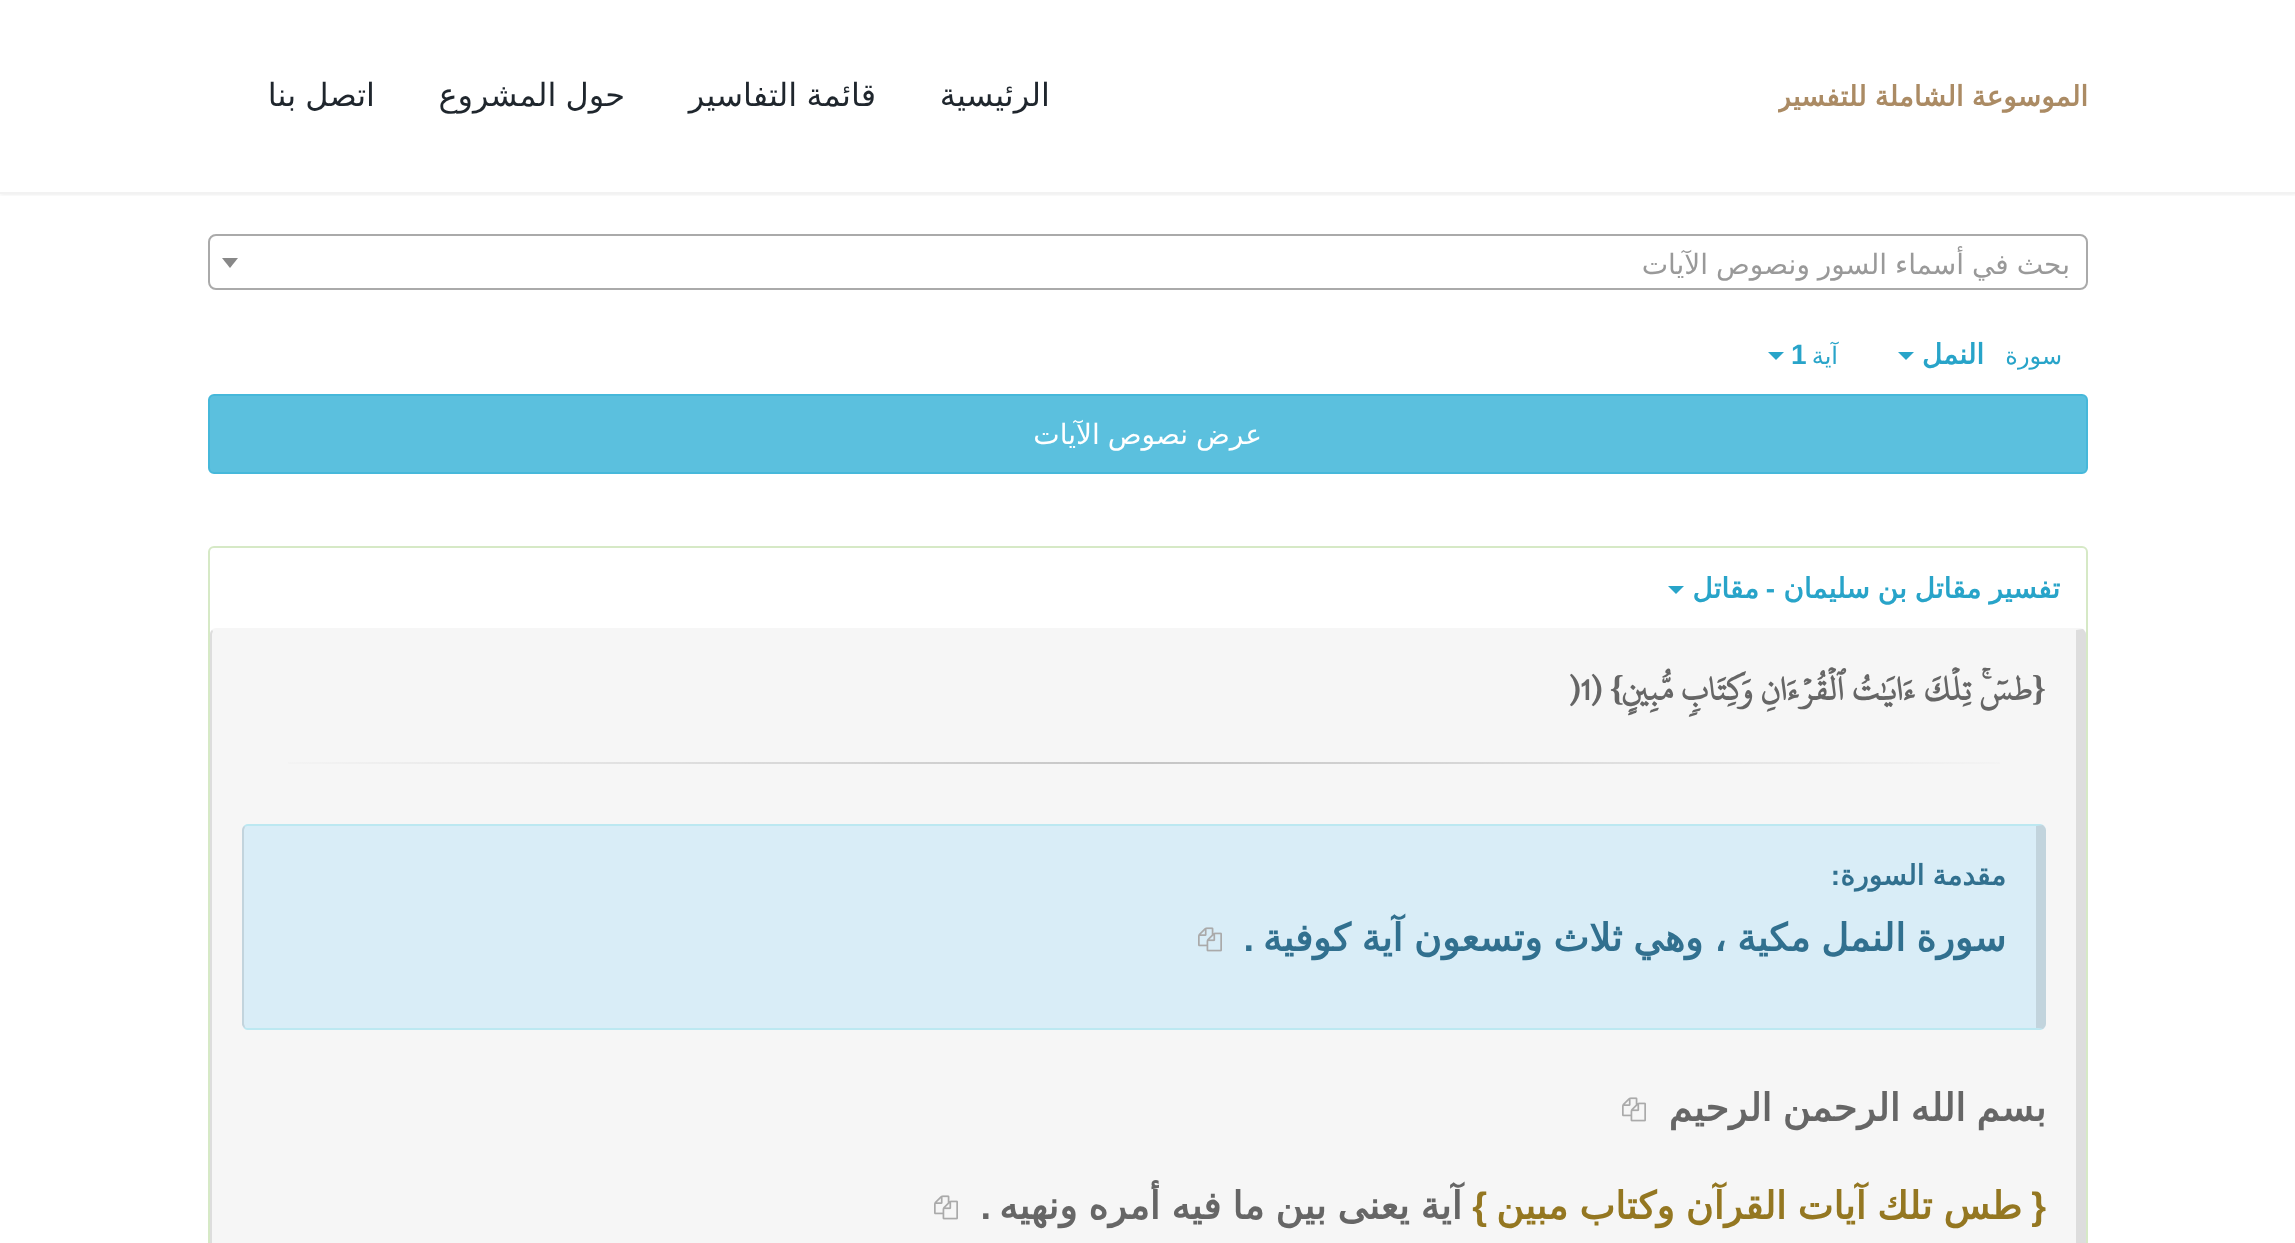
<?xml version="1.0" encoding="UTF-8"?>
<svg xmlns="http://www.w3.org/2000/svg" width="2295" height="1243">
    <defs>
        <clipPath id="clip1"><rect x="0" y="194" width="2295" height="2"/></clipPath>
        <filter id="blur1" x="-50%" y="-200%" width="200%" height="500%"><feGaussianBlur stdDeviation="2"/></filter>
        <clipPath id="clip2"><rect x="1778" y="0" width="310" height="192"/></clipPath>
        <linearGradient id="g1" gradientUnits="userSpaceOnUse" x1="242" y1="763" x2="2046" y2="763"><stop offset="0" stop-color="#F6F6F6"/><stop offset="0.5" stop-color="#C5C5C5"/><stop offset="1" stop-color="#F6F6F6"/></linearGradient>
    </defs>
    <rect width="100%" height="100%" fill="#FFFFFF"/>
    <g clip-path="url(#clip1)">
        <rect x="0" y="0" width="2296" height="194" fill="#000000" fill-opacity="0.1" filter="url(#blur1)"/>
    </g>
    <rect x="0" y="192" width="2295" height="2" fill="#F2F2F2"/>
    <g clip-path="url(#clip2)">
        <text x="2088" y="106" word-spacing="-1" font-family="DejaVu Sans" font-size="28" font-weight="700" direction="rtl" fill="#AB8B64">الموسوعة الشاملة للتفسير</text>
    </g>
    <text x="1050" y="106" font-family="DejaVu Sans" font-size="32" direction="rtl" fill="#1F262D">الرئيسية</text>
    <text x="876" y="106" word-spacing="-1" font-family="DejaVu Sans" font-size="32" direction="rtl" fill="#1F262D">قائمة التفاسير</text>
    <text x="625" y="106" word-spacing="-1" font-family="DejaVu Sans" font-size="32" direction="rtl" fill="#1F262D">حول المشروع</text>
    <text x="375" y="106" word-spacing="-1" font-family="DejaVu Sans" font-size="32" direction="rtl" fill="#1F262D">اتصل بنا</text>
    <rect x="209" y="235" width="1878" height="54" rx="7" fill="none" stroke="#AAAAAA" stroke-width="2"/>
    <text x="2070" y="274" word-spacing="-1" font-family="DejaVu Sans" font-size="28" direction="rtl" fill="#999999">بحث في أسماء السور ونصوص الآيات</text>
    <path d="M 222 258 H 238 L 230 268 Z" fill="#888888"/>
    <text x="2062" y="364" font-family="DejaVu Sans" font-size="24" direction="rtl" fill="#28A4C9">سورة</text>
    <text x="1984" y="364" font-family="DejaVu Sans" font-size="28" font-weight="700" direction="rtl" fill="#28A4C9">النمل</text>
    <path d="M 1898 352 H 1914 L 1906 360 Z" fill="#28A4C9"/>
    <text x="1838" y="364" font-family="DejaVu Sans" font-size="24" direction="rtl" fill="#28A4C9">آية</text>
    <text x="1791" y="364" font-family="Liberation Sans" font-size="28" font-weight="700" fill="#28A4C9">1</text>
    <path d="M 1768 352 H 1784 L 1776 360 Z" fill="#28A4C9"/>
    <rect x="209" y="395" width="1878" height="78" rx="5" fill="#5BC0DE" stroke="#46B8DA" stroke-width="2"/>
    <text x="1262" y="444" word-spacing="-1" font-family="DejaVu Sans" font-size="28" direction="rtl" fill="#FFFFFF">عرض نصوص الآيات</text>
    <rect x="209" y="547" width="1878" height="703" rx="5" fill="none" stroke="#D6E9C6" stroke-width="2"/>
    <text x="2060" y="598" word-spacing="-1" font-family="DejaVu Sans" font-size="28" font-weight="700" direction="rtl" fill="#28A4C9">تفسير مقاتل بن سليمان</text>
    <text x="1775" y="598" font-family="Liberation Sans" font-size="28" font-weight="700" direction="rtl" fill="#28A4C9">-</text>
    <text x="1759" y="598" font-family="DejaVu Sans" font-size="28" font-weight="700" direction="rtl" fill="#28A4C9">مقاتل</text>
    <path d="M 1668 586 H 1684 L 1676 594 Z" fill="#28A4C9"/>
    <rect x="210" y="628" width="1876" height="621" rx="6" fill="#F6F6F6"/>
    <path d="M 2086 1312 V 634 C 2086 632 2084 630 2083 629 L 2076 630 V 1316 L 2083 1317 C 2084 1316 2086 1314 2086 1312 Z" fill="#DDDDDD"/>
    <path d="M 210 634 V 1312 C 210 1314 211 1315 212 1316 L 213 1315 L 212 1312 V 634 L 213 631 L 212 630 C 211 631 210 632 210 634 Z" fill="#DDDDDD"/>
    <text x="2046" y="700" font-family="Liberation Serif" font-size="36" font-weight="700" direction="rtl" fill="#666666">{</text>
    <text x="2032" y="700" font-family="'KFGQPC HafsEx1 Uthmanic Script'" font-size="36" font-weight="700" direction="rtl" fill="#666666">طسٓۚ تِلۡكَ ءَايَٰتُ ٱلۡقُرۡءَانِ وَكِتَابٖ مُّبِينٍ</text>
    <text x="1624" y="700" font-family="Liberation Serif" font-size="36" font-weight="700" direction="rtl" fill="#666666">}</text>
    <text x="1602" y="700" font-family="'KFGQPC HafsEx1 Uthmanic Script'" font-size="36" font-weight="700" direction="rtl" fill="#666666">(</text>
    <text x="1568" y="700" font-family="'KFGQPC HafsEx1 Uthmanic Script'" font-size="36" font-weight="700" fill="#666666">)1</text>
    <rect x="288" y="762" width="1712" height="2" fill="url(#g1)"/>
    <rect x="242" y="824" width="1804" height="206" rx="6" fill="#D9EDF7"/>
    <path d="M 248 824 C 246 824 245 825 244 826 L 245 827 C 246 826 247 826 248 826 H 2036 L 2043 825 L 2040 824 Z" fill="#BCE8F1"/>
    <path d="M 2046 1024 V 830 C 2046 828 2044 826 2043 825 L 2036 826 V 1028 L 2043 1029 C 2044 1028 2046 1026 2046 1024 Z" fill="#000000" fill-opacity="0.1"/>
    <path d="M 248 1030 H 2040 L 2043 1029 L 2036 1028 H 248 C 247 1028 246 1028 245 1027 L 244 1028 C 245 1029 246 1030 248 1030 Z" fill="#BCE8F1"/>
    <path d="M 242 830 V 1025 L 244 1028 L 245 1027 L 244 1024 V 862 V 830 L 245 827 L 244 826 C 243 827 242 828 242 830 Z" fill="#000000" fill-opacity="0.1"/>
    <text x="2006" y="885" word-spacing="-1" font-family="DejaVu Sans" font-size="28" font-weight="700" direction="rtl" fill="#31708F">مقدمة السورة</text>
    <text x="1840" y="885" font-family="Liberation Sans" font-size="28" font-weight="700" direction="rtl" fill="#31708F">:</text>
    <text x="2006" y="951" word-spacing="-1.25" font-family="DejaVu Sans" font-size="38" font-weight="700" direction="rtl" fill="#31708F">سورة النمل مكية ، وهي ثلاث وتسعون آية كوفية</text>
    <text x="1254" y="951" font-family="Liberation Sans" font-size="38" font-weight="700" direction="rtl" fill="#31708F">.</text>
    <image x="1198" y="927" width="24" height="25" href="img_01.png"/>
    <text x="2046" y="1121" word-spacing="-1.5" font-family="DejaVu Sans" font-size="38" font-weight="700" direction="rtl" fill="#666666">بسم الله الرحمن الرحيم</text>
    <image x="1622" y="1097" width="24" height="25" href="img_02.png"/>
    <text x="2046" y="1219" font-family="Liberation Sans" font-size="38" font-weight="700" direction="rtl" fill="#947721">{</text>
    <text x="2022" y="1219" word-spacing="-1" font-family="DejaVu Sans" font-size="38" font-weight="700" direction="rtl" fill="#947721">طس تلك آيات القرآن وكتاب مبين</text>
    <text x="1487" y="1219" font-family="Liberation Sans" font-size="38" font-weight="700" direction="rtl" fill="#947721">}</text>
    <text x="1462" y="1219" word-spacing="-1" font-family="DejaVu Sans" font-size="38" font-weight="700" direction="rtl" fill="#666666">آية يعنى بين ما فيه أمره ونهيه</text>
    <text x="991" y="1219" font-family="Liberation Sans" font-size="38" font-weight="700" direction="rtl" fill="#666666">.</text>
    <image x="934" y="1195" width="24" height="25" href="img_02.png"/>
</svg>
